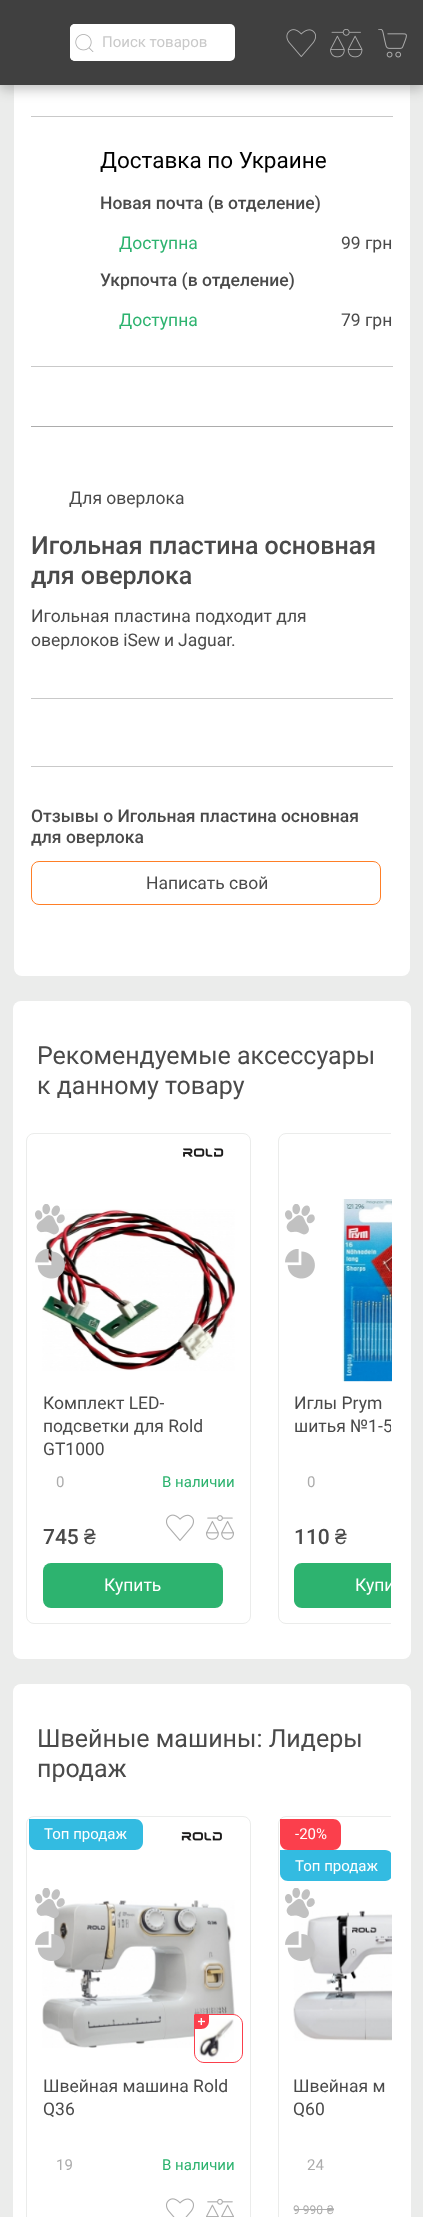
<?xml version="1.0" encoding="UTF-8"?>
<svg xmlns="http://www.w3.org/2000/svg" width="423" height="2217">
    <defs>
        <filter id="blur1" x="-50%" y="-200%" width="200%" height="500%"><feGaussianBlur stdDeviation="6.5"/></filter>
        <clipPath id="clip1"><rect x="10" y="1119" width="381" height="519"/></clipPath>
        <clipPath id="clip2"><rect x="294" y="1391" width="97" height="85"/></clipPath>
        <clipPath id="clip3"><rect x="10" y="1803" width="381" height="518"/></clipPath>
    </defs>
    <rect width="100%" height="100%" fill="#EBECEB"/>
    <rect x="14" y="-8" width="396" height="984" rx="8" fill="#FFFFFF"/>
    <rect x="0" y="4" width="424" height="85" fill="#000000" fill-opacity="0.25" filter="url(#blur1)"/>
    <rect x="0" y="0" width="423" height="85" fill="#404040"/>
    <rect x="70" y="24" width="165" height="37" rx="5" fill="#FFFFFF"/>
    <rect x="70" y="24" width="29" height="37" rx="5" fill="#FFFFFF"/>
    <image x="75" y="34" width="19" height="18" href="img_01.png"/>
    <text x="102" y="47" font-family="Roboto" font-size="15" fill="#C9C9C9">Поиск товаров</text>
    <image x="286" y="29" width="30" height="28" href="img_02.png"/>
    <image x="330" y="29" width="33" height="29" href="img_03.png"/>
    <image x="378" y="29" width="29" height="29" href="img_04.png"/>
    <rect x="31" y="426" width="362" height="1" fill="#ACACAC"/>
    <rect x="31" y="116" width="362" height="1" fill="#C9C9C9"/>
    <rect x="31" y="366" width="362" height="1" fill="#C9C9C9"/>
    <text x="100" y="168" font-family="Roboto" font-size="22.5" fill="#000000">Доставка по Украине</text>
    <text x="100" y="209" font-family="Roboto" font-size="17.5" font-weight="500" fill="#4A4A4A">Новая почта (в отделение)</text>
    <text x="119" y="249" font-family="Roboto" font-size="17.5" fill="#2DB36F">Доступна</text>
    <text x="341" y="249" font-family="Roboto" font-size="17.5" fill="#4A4A4A">99 грн</text>
    <text x="100" y="286" font-family="Roboto" font-size="17.5" font-weight="500" fill="#4A4A4A">Укрпочта (в отделение)</text>
    <text x="119" y="326" font-family="Roboto" font-size="17.5" fill="#2DB36F">Доступна</text>
    <text x="341" y="326" font-family="Roboto" font-size="17.5" fill="#4A4A4A">79 грн</text>
    <text x="69" y="504" font-family="Roboto" font-size="17.5" fill="#4A4A4A">Для оверлока</text>
    <text font-family="Roboto" font-size="25" font-weight="500" fill="#4A4A4A">
        <tspan x="31" y="554">Игольная пластина основная</tspan>
        <tspan x="31" y="584">для оверлока</tspan>
    </text>
    <text font-family="Roboto" font-size="17.5" fill="#4A4A4A">
        <tspan x="31" y="622">Игольная пластина подходит для</tspan>
        <tspan x="31" y="646" word-spacing="-0.5">оверлоков iSew и Jaguar.</tspan>
    </text>
    <rect x="31" y="698" width="362" height="1" fill="#C9C9C9"/>
    <rect x="31" y="766" width="362" height="1" fill="#C9C9C9"/>
    <text font-family="Roboto" font-size="17.5" font-weight="500" fill="#4A4A4A">
        <tspan x="31" y="822">Отзывы о Игольная пластина основная</tspan>
        <tspan x="31" y="843">для оверлока</tspan>
    </text>
    <rect x="31.5" y="861.5" width="349" height="43" rx="7.5" fill="none" stroke="#FF7F27"/>
    <text x="146" y="889" font-family="Roboto" font-size="17.5" fill="#4A4A4A">Написать свой</text>
    <rect x="13" y="1001" width="398" height="658" rx="8" fill="#FFFFFF"/>
    <text font-family="Roboto" font-size="25" fill="#4A4A4A">
        <tspan x="37" y="1064">Рекомендуемые аксессуары</tspan>
        <tspan x="37" y="1094">к данному товару</tspan>
    </text>
    <rect x="26.5" y="1133.5" width="224" height="490" rx="7.5" fill="none" stroke="#EBECEB"/>
    <image x="183" y="1148" width="41" height="9" href="img_05.png"/>
    <image x="42" y="1209" width="193" height="162" href="img_08.png"/>
    <image x="35" y="1204" width="30" height="31" href="img_06.png"/>
    <image x="35" y="1249" width="30" height="30" href="img_07.png"/>
    <text font-family="Roboto" font-size="17.5" fill="#4A4A4A">
        <tspan x="43" y="1409">Комплект LED-</tspan>
        <tspan x="43" y="1432">подсветки для Rold</tspan>
        <tspan x="43" y="1455">GT1000</tspan>
    </text>
    <text x="56" y="1487" font-family="Roboto" font-size="15" fill="#ACACAC">0</text>
    <text x="162" y="1487" font-family="Roboto" font-size="15" fill="#2DB36F">В наличии</text>
    <text x="43" y="1544" font-family="Roboto" font-size="21" font-weight="500" fill="#4A4A4A">745</text>
    <text x="84" y="1544" font-family="Liberation Sans" font-size="21" fill="#4A4A4A">₴</text>
    <image x="166" y="1514" width="28" height="27" href="img_09.png"/>
    <image x="206" y="1515" width="28" height="25" href="img_10.png"/>
    <rect x="43" y="1563" width="180" height="45" rx="8" fill="#2DB36F"/>
    <text x="104" y="1591" font-family="Roboto" font-size="17.5" fill="#FFFFFF">Купить</text>
    <g clip-path="url(#clip1)">
        <rect x="278.5" y="1133.5" width="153" height="490" rx="7.5" fill="none" stroke="#EBECEB"/>
    </g>
    <image x="285" y="1204" width="30" height="31" href="img_11.png"/>
    <image x="285" y="1249" width="30" height="30" href="img_12.png"/>
    <image x="342" y="1199" width="50" height="183" href="img_13.png"/>
    <text x="294" y="1409" font-family="Roboto" font-size="17.5" fill="#4A4A4A">Иглы Prym</text>
    <g clip-path="url(#clip2)">
        <text x="294" y="1432" font-family="Roboto" font-size="17.5" fill="#4A4A4A">шитья №1-5</text>
    </g>
    <text x="307" y="1487" font-family="Roboto" font-size="15" fill="#ACACAC">0</text>
    <text x="294" y="1544" font-family="Roboto" font-size="21" font-weight="500" fill="#4A4A4A">110</text>
    <text x="335" y="1544" font-family="Liberation Sans" font-size="21" fill="#4A4A4A">₴</text>
    <path d="M 302 1563 H 391 V 1608 H 302 C 297.5 1608 294 1604.5 294 1600 V 1571 C 294 1566.5 297.5 1563 302 1563 Z" fill="#2DB36F"/>
    <g clip-path="url(#clip1)">
        <text x="355" y="1591" font-family="Roboto" font-size="17.5" fill="#FFFFFF">Купи</text>
    </g>
    <rect x="13" y="1684" width="398" height="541" rx="8" fill="#FFFFFF"/>
    <text font-family="Roboto" font-size="25" fill="#4A4A4A">
        <tspan x="37" y="1747">Швейные машины: Лидеры</tspan>
        <tspan x="37" y="1777">продаж</tspan>
    </text>
    <rect x="26.5" y="1816.5" width="224" height="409" rx="7.5" fill="none" stroke="#EBECEB"/>
    <path d="M 29 1819 H 135 C 139.5 1819 143 1822.5 143 1827 V 1842 C 143 1846.5 139.5 1850 135 1850 H 37 C 32.5 1850 29 1846.5 29 1842 Z" fill="#33BBE1"/>
    <text x="44" y="1839" font-family="Roboto" font-size="15" fill="#FFFFFF">Топ продаж</text>
    <image x="181" y="1832" width="41" height="9" href="img_14.png"/>
    <image x="42" y="1900" width="193" height="148" href="img_19.png"/>
    <image x="35" y="1888" width="30" height="30" href="img_15.png"/>
    <image x="35" y="1931" width="30" height="30" href="img_16.png"/>
    <path d="M 194 2014 H 233 C 238.5 2014 243 2018.5 243 2024 V 2053 C 243 2058.5 238.5 2063 233 2063 H 204 C 198.5 2063 194 2058.5 194 2053 Z" fill="#FFFFFF"/>
    <image x="199" y="2019" width="35" height="41" href="img_17.png"/>
    <path d="M 194.5 2014.5 H 233 C 238 2014.5 242.5 2019 242.5 2024 V 2053 C 242.5 2058 238 2062.5 233 2062.5 H 204 C 199 2062.5 194.5 2058 194.5 2053 Z" fill="none" stroke="#FB3F4C"/>
    <path d="M 195 2015 H 209 V 2021 C 209 2025.5 205.5 2029 201 2029 H 195 Z" fill="#FB3F4C"/>
    <image x="198" y="2018" width="7" height="7" href="img_18.png"/>
    <text font-family="Roboto" font-size="17.5" fill="#4A4A4A">
        <tspan x="43" y="2092">Швейная машина Rold</tspan>
        <tspan x="43" y="2115">Q36</tspan>
    </text>
    <text x="56" y="2170" font-family="Roboto" font-size="15" fill="#ACACAC">19</text>
    <text x="162" y="2170" font-family="Roboto" font-size="15" fill="#2DB36F">В наличии</text>
    <image x="166" y="2198" width="28" height="19" href="img_20.png"/>
    <image x="206" y="2198" width="28" height="19" href="img_21.png"/>
    <g clip-path="url(#clip3)">
        <rect x="278.5" y="1816.5" width="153" height="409" rx="7.5" fill="none" stroke="#EBECEB"/>
    </g>
    <path d="M 280 1819 H 333 C 337.5 1819 341 1822.5 341 1827 V 1842 C 341 1846.5 337.5 1850 333 1850 H 288 C 283.5 1850 280 1846.5 280 1842 Z" fill="#FB3F4C"/>
    <text x="295" y="1839" font-family="Roboto" font-size="15" fill="#FFFFFF">-20%</text>
    <g clip-path="url(#clip3)">
        <path d="M 280 1850 H 385 C 389.5 1850 393 1853.5 393 1858 V 1873 C 393 1877.5 389.5 1881 385 1881 H 288 C 283.5 1881 280 1877.5 280 1873 Z" fill="#33BBE1"/>
    </g>
    <text x="295" y="1871" font-family="Roboto" font-size="15" fill="#FFFFFF">Топ продаж</text>
    <image x="293" y="1910" width="99" height="131" href="img_24.png"/>
    <image x="285" y="1888" width="30" height="30" href="img_22.png"/>
    <image x="285" y="1931" width="30" height="30" href="img_23.png"/>
    <text font-family="Roboto" font-size="17.5" fill="#4A4A4A">
        <tspan x="293" y="2092">Швейная м</tspan>
        <tspan x="293" y="2115">Q60</tspan>
    </text>
    <text x="307" y="2170" font-family="Roboto" font-size="15" fill="#ACACAC">24</text>
    <text x="293" y="2214" font-family="Roboto" font-size="12" fill="#ACACAC">9 990</text>
    <rect x="294" y="2209" width="30" height="1" fill="#ACACAC"/>
    <text x="327" y="2214" font-family="Liberation Sans" font-size="12" fill="#ACACAC">₴</text>
    <rect x="324" y="2209" width="10" height="1" fill="#ACACAC"/>
</svg>
